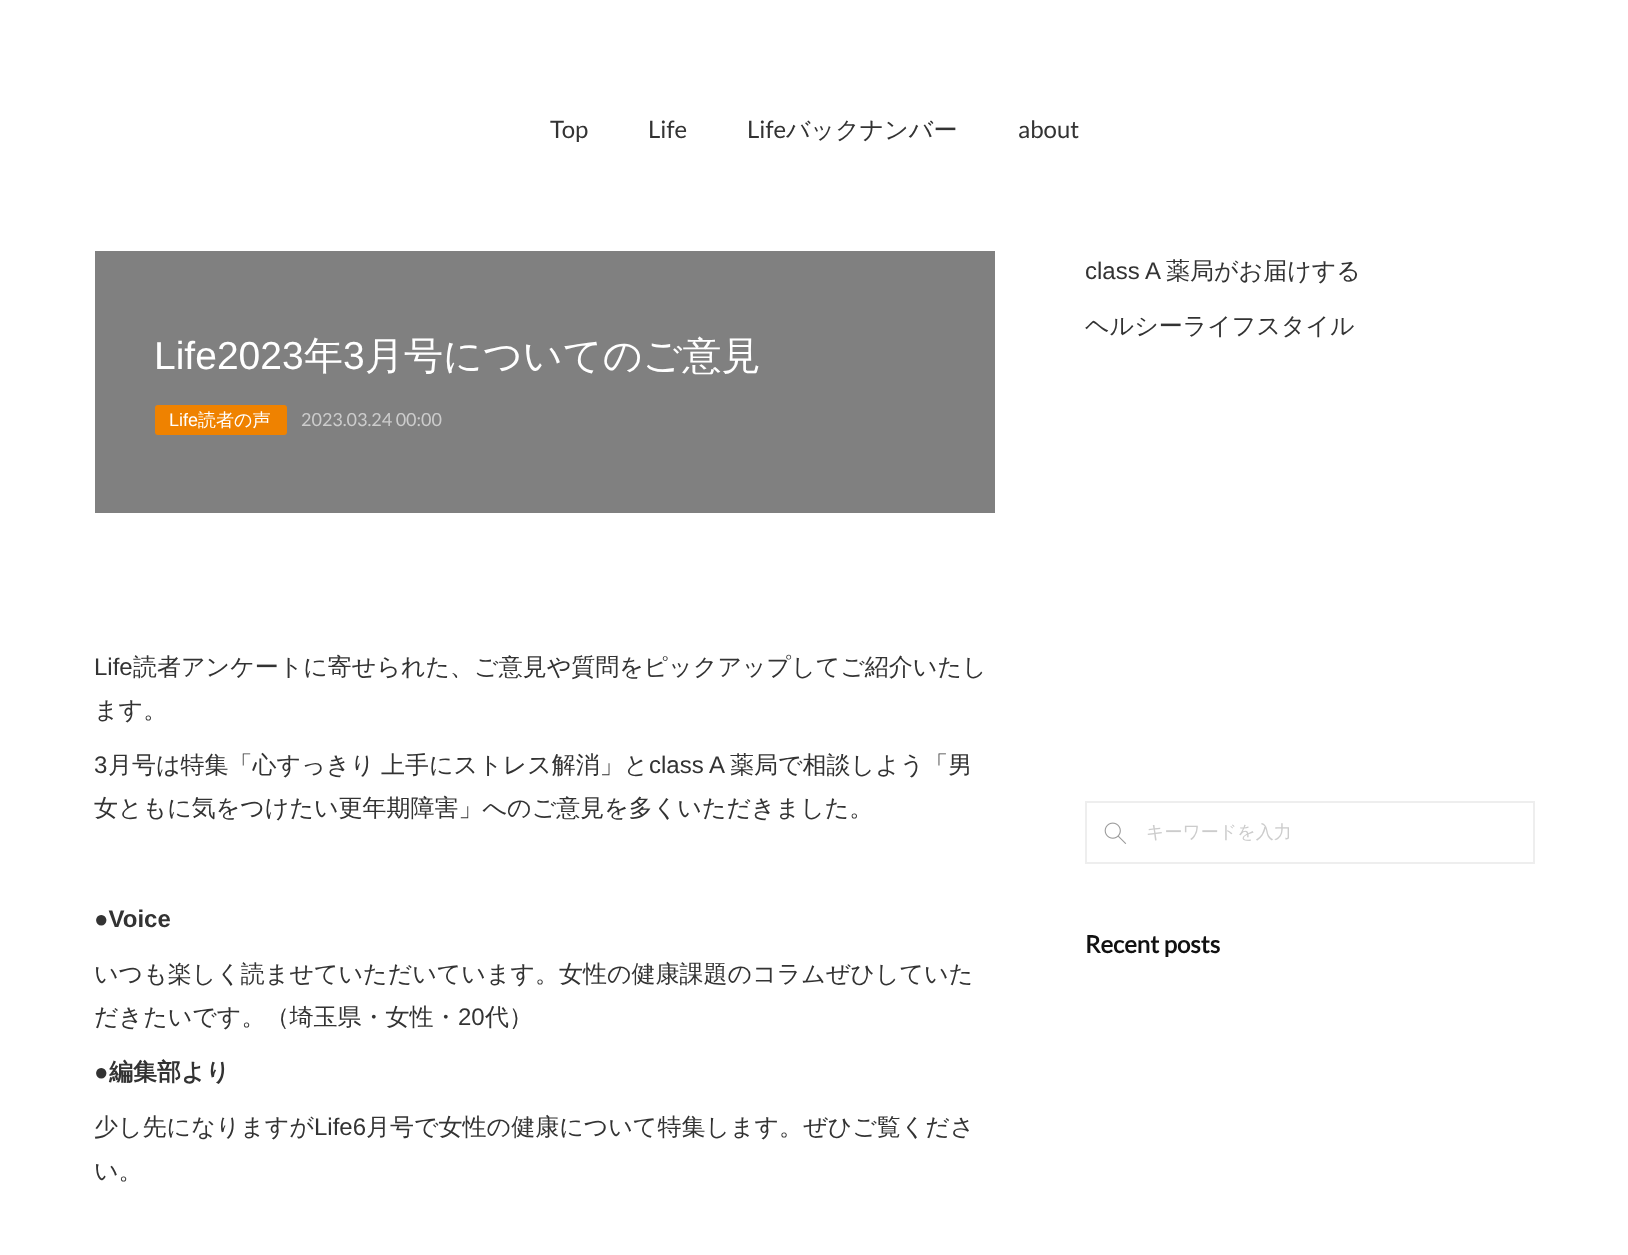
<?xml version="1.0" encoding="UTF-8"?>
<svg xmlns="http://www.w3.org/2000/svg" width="1628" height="1255">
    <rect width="100%" height="100%" fill="#FFFFFF"/>
    <text x="550" y="138" font-family="Lato" font-size="24" fill="#333333">Top</text>
    <text x="648" y="138" font-family="Lato" font-size="24" fill="#333333">Life</text>
    <text x="747" y="138" font-family="Lato" font-size="24" fill="#333333">Life</text>
    <text x="786" y="138" font-family="WenQuanYi Zen Hei" font-size="24" font-weight="500" fill="#333333">バックナンバー</text>
    <text x="1018" y="138" font-family="Lato" font-size="24" fill="#333333">about</text>
    <rect x="95" y="251" width="900" height="262" fill="#808080"/>
    <text x="154" y="369" font-family="Liberation Sans" font-size="39" fill="#FFFFFF">Life2023</text>
    <text x="304" y="369" font-family="WenQuanYi Zen Hei" font-size="39" font-weight="500" fill="#FFFFFF">年</text>
    <text x="343" y="369" font-family="Liberation Sans" font-size="39" fill="#FFFFFF">3</text>
    <text x="365" y="369" font-family="WenQuanYi Zen Hei" font-size="39" font-weight="500" fill="#FFFFFF">月号についてのご意見</text>
    <rect x="155" y="405" width="132" height="30" rx="3" fill="#EF8200"/>
    <text x="169" y="426" font-family="Liberation Sans" font-size="18" fill="#FFFFFF">Life</text>
    <text x="198" y="426" font-family="WenQuanYi Zen Hei" font-size="18" font-weight="500" fill="#FFFFFF">読者の声</text>
    <text x="301" y="426" font-family="Lato" font-size="18" fill="#CCCCCC">2023.03.24 00:00</text>
    <text x="94" y="675" font-family="Liberation Sans" font-size="24" fill="#333333">Life</text>
    <text x="133" y="675" font-family="WenQuanYi Zen Hei" font-size="24" font-weight="500" fill="#333333">読者アンケートに寄せられた、ご意見や質問をピックアップしてご紹介いたし</text>
    <text x="94" y="718" font-family="WenQuanYi Zen Hei" font-size="24" font-weight="500" fill="#333333">ます。</text>
    <text x="94" y="773" font-family="Liberation Sans" font-size="24" fill="#333333">3</text>
    <text x="108" y="773" font-family="WenQuanYi Zen Hei" font-size="24" font-weight="500" fill="#333333">月号は特集「心すっきり</text>
    <text x="381" y="773" font-family="WenQuanYi Zen Hei" font-size="24" font-weight="500" fill="#333333">上手にストレス解消」と</text>
    <text x="649" y="773" font-family="Liberation Sans" font-size="24" fill="#333333">class A</text>
    <text x="730" y="773" font-family="WenQuanYi Zen Hei" font-size="24" font-weight="500" fill="#333333">薬局で相談しよう「男</text>
    <text x="94" y="816" font-family="WenQuanYi Zen Hei" font-size="24" font-weight="500" fill="#333333">女ともに気をつけたい更年期障害」へのご意見を多くいただきました。</text>
    <text x="94" y="927" font-family="Liberation Sans" font-size="24" font-weight="700" fill="#333333">●Voice</text>
    <text font-family="WenQuanYi Zen Hei" font-size="24" font-weight="500" fill="#333333">
        <tspan x="94" y="982">いつも楽しく読ませていただいています。女性の健康課題のコラムぜひしていた</tspan>
        <tspan x="94" y="1025">だきたいです。（埼玉県・女性・</tspan>
    </text>
    <text x="458" y="1025" font-family="Liberation Sans" font-size="24" fill="#333333">20</text>
    <text x="485" y="1025" font-family="WenQuanYi Zen Hei" font-size="24" font-weight="500" fill="#333333">代）</text>
    <text x="94" y="1080" font-family="Liberation Sans" font-size="24" font-weight="700" fill="#333333">●</text>
    <text x="109" y="1080" font-family="WenQuanYi Zen Hei" font-size="24" font-weight="700" fill="#333333">編集部より</text>
    <text x="94" y="1135" font-family="WenQuanYi Zen Hei" font-size="24" font-weight="500" fill="#333333">少し先になりますが</text>
    <text x="314" y="1135" font-family="Liberation Sans" font-size="24" fill="#333333">Life6</text>
    <text x="366" y="1135" font-family="WenQuanYi Zen Hei" font-size="24" font-weight="500" fill="#333333">月号で女性の健康について特集します。ぜひご覧くださ</text>
    <text x="94" y="1179" font-family="WenQuanYi Zen Hei" font-size="24" font-weight="500" fill="#333333">い。</text>
    <text x="1085" y="279" font-family="Liberation Sans" font-size="24" fill="#333333">class A</text>
    <text x="1166" y="279" font-family="WenQuanYi Zen Hei" font-size="24" font-weight="500" fill="#333333">薬局がお届けする</text>
    <text x="1085" y="334" font-family="WenQuanYi Zen Hei" font-size="24" font-weight="500" fill="#333333">ヘルシーライフスタイル</text>
    <rect x="1086" y="802" width="448" height="61" fill="none" stroke="#EEEEEE" stroke-width="2"/>
    <image x="1104" y="822" width="23" height="22" href="img_01.png"/>
    <text x="1146" y="838" font-family="WenQuanYi Zen Hei" font-size="18" font-weight="500" fill="#CCCCCC">キーワードを入力</text>
    <text x="1085" y="953" font-family="Lato" font-size="24" font-weight="700" fill="#111111">Recent posts</text>
</svg>
